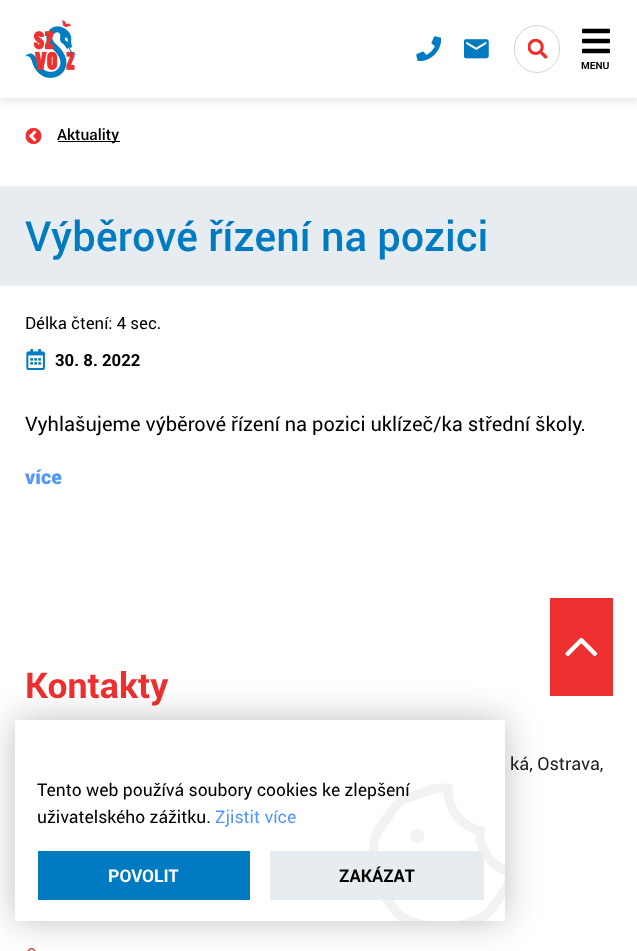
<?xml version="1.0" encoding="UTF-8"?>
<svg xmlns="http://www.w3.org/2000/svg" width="637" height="951">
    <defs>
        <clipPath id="clip1"><path d="M 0 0 H 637 V 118 H 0 Z M 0 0 H 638 V 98 H 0 Z" clip-rule="evenodd"/></clipPath>
        <filter id="blur1" x="-50%" y="-200%" width="200%" height="500%"><feGaussianBlur stdDeviation="6"/></filter>
        <filter id="blur2" x="-50%" y="-200%" width="200%" height="500%"><feGaussianBlur stdDeviation="17.5"/></filter>
    </defs>
    <rect width="100%" height="100%" fill="#FFFFFF"/>
    <g clip-path="url(#clip1)">
        <rect x="0" y="1" width="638" height="98" fill="#000000" fill-opacity="0.15" filter="url(#blur1)"/>
    </g>
    <image x="25" y="20" width="52" height="58" href="img_01.png"/>
    <image x="416" y="36" width="25" height="25" href="img_02.png"/>
    <image x="464" y="39" width="25" height="20" href="img_03.png"/>
    <rect x="514.5" y="25.5" width="45" height="47" rx="22.5" fill="none" stroke="#CED4DA"/>
    <image x="528" y="39" width="20" height="20" href="img_04.png"/>
    <image x="582" y="28" width="28" height="26" href="img_05.png"/>
    <text x="581" y="69" font-family="Roboto" font-size="10" font-weight="700" fill="#000000">MENU</text>
    <image x="25" y="128" width="17" height="16" href="img_06.png"/>
    <rect x="58" y="141" width="62" height="1" fill="#000000"/>
    <text x="57" y="140" font-family="Roboto" font-size="15.5" font-weight="500" fill="#000000">Aktuality</text>
    <rect x="0" y="186" width="637" height="100" fill="#E6ECF0"/>
    <text x="25" y="251" font-family="Roboto" font-size="41.5" font-weight="500" fill="#007BC2">Výběrové řízení na pozici</text>
    <text x="25" y="329" font-family="Roboto" font-size="16.75" fill="#000000">Délka čtení: 4 sec.</text>
    <image x="26" y="349" width="19" height="21" href="img_07.png"/>
    <text x="55" y="366" font-family="Roboto" font-size="16.75" font-weight="700" fill="#000000">30. 8. 2022</text>
    <text x="25" y="431" font-family="Roboto" font-size="20" fill="#000000">Vyhlašujeme výběrové řízení na pozici uklízeč/ka střední školy.</text>
    <text x="25" y="484" font-family="Roboto" font-size="20" font-weight="900" fill="#5496FF">více</text>
    <rect x="550" y="598" width="63" height="98" fill="#EE2F2F"/>
    <image x="565" y="638" width="33" height="18" href="img_08.png"/>
    <text x="25" y="698" font-family="Roboto" font-size="35.5" font-weight="700" fill="#EE2F2F">Kontakty</text>
    <text x="510" y="770" font-family="Roboto" font-size="18" fill="#212121">ká, Ostrava,</text>
    <image x="27" y="948" width="9" height="3" href="img_09.png"/>
    <rect x="15" y="720" width="490" height="201" fill="#000000" fill-opacity="0.25" filter="url(#blur2)"/>
    <rect x="15" y="720" width="490" height="201" fill="#FFFFFF"/>
    <image x="369" y="783" width="136" height="138" href="img_10.png"/>
    <text font-family="Roboto" font-size="17.5" fill="#000000">
        <tspan x="37" y="796">Tento web používá soubory cookies ke zlepšení</tspan>
        <tspan x="37" y="823">uživatelského zážitku.</tspan>
    </text>
    <text x="215" y="823" font-family="Roboto" font-size="17.5" fill="#5496FF">Zjistit více</text>
    <rect x="38" y="851" width="212" height="49" fill="#007BC2"/>
    <text x="108" y="882" font-family="Roboto" font-size="17.5" font-weight="700" fill="#FFFFFF">POVOLIT</text>
    <rect x="270" y="851" width="214" height="49" fill="#E6ECF0"/>
    <text x="339" y="882" font-family="Roboto" font-size="17.5" font-weight="700" fill="#000000">ZAKÁZAT</text>
</svg>
